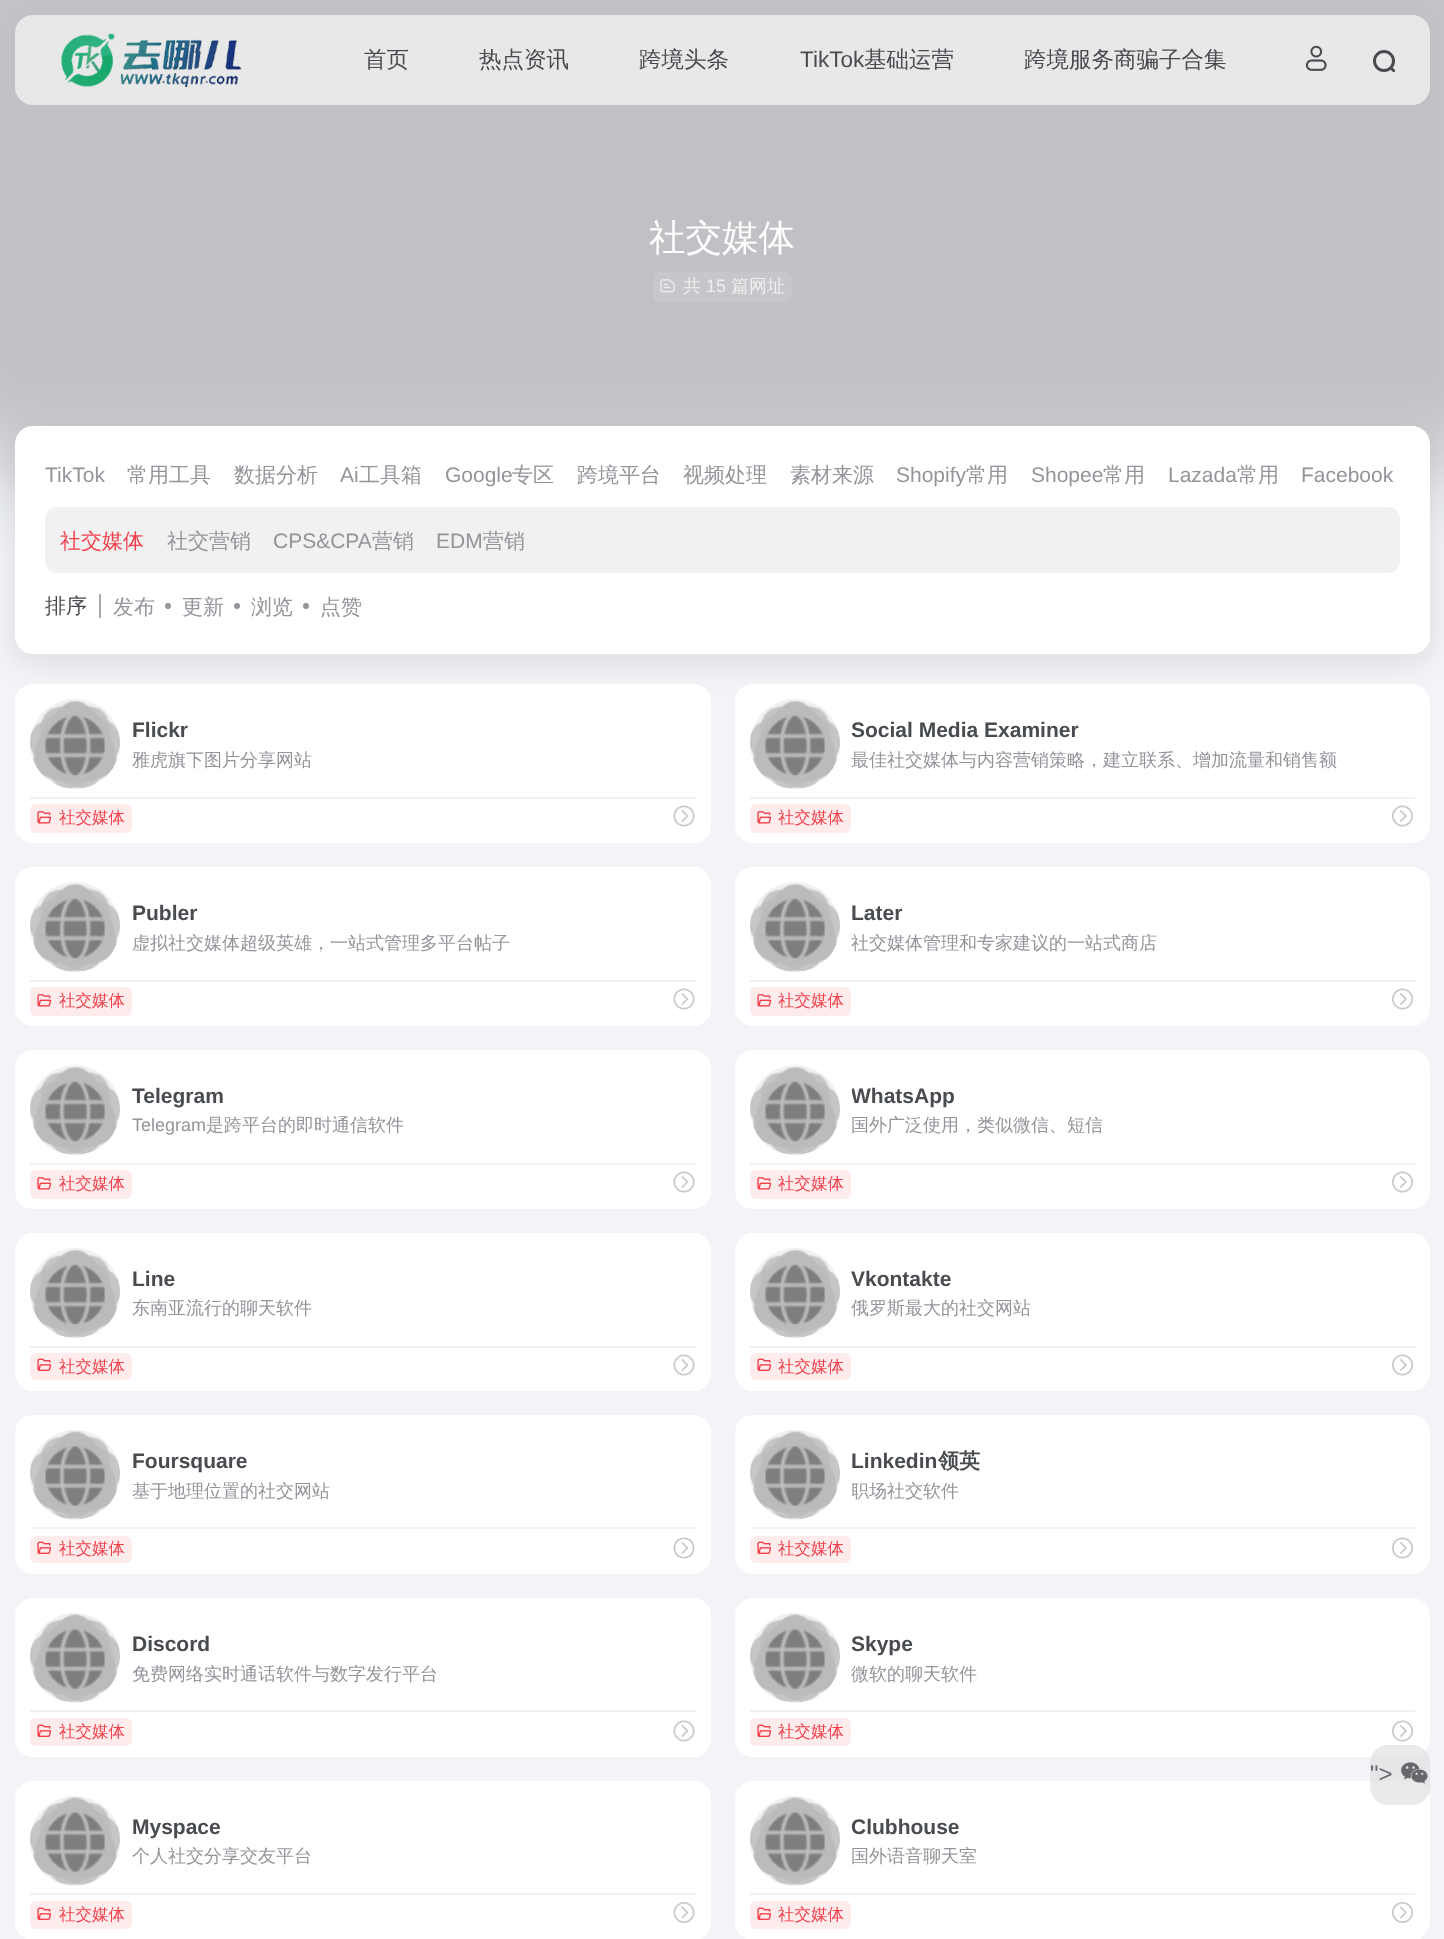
<?xml version="1.0" encoding="UTF-8"?>
<svg xmlns="http://www.w3.org/2000/svg" width="1444" height="1939">
    <defs>
        <filter id="blur1" x="-50%" y="-200%" width="200%" height="500%"><feGaussianBlur stdDeviation="45"/></filter>
        <filter id="blur2" x="-50%" y="-200%" width="200%" height="500%"><feGaussianBlur stdDeviation="15"/></filter>
        <clipPath id="clip1"><rect x="852" y="1080" width="563" height="32"/></clipPath>
        <clipPath id="clip2"><rect x="852" y="1478" width="563" height="27"/></clipPath>
    </defs>
    <rect width="100%" height="100%" fill="#F2F4F7"/>
    <rect x="-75" y="-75" width="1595" height="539" fill="#C0C1C4" filter="url(#blur1)"/>
    <rect x="15" y="15" width="1415" height="90" rx="18" fill="#E8E8E9"/>
    <image x="50" y="33" width="192" height="54" href="img_01.png"/>
    <text x="364" y="67" font-family="WenQuanYi Zen Hei" font-size="22.5" font-weight="500" fill="#484B4F">首页</text>
    <text x="479" y="67" font-family="WenQuanYi Zen Hei" font-size="22.5" font-weight="500" fill="#484B4F">热点资讯</text>
    <text x="639" y="67" font-family="WenQuanYi Zen Hei" font-size="22.5" font-weight="500" fill="#484B4F">跨境头条</text>
    <text x="800" y="67" font-family="Liberation Sans" font-size="22.5" fill="#484B4F">TikTok</text>
    <text x="864" y="67" font-family="WenQuanYi Zen Hei" font-size="22.5" font-weight="500" fill="#484B4F">基础运营</text>
    <text x="1024" y="67" font-family="WenQuanYi Zen Hei" font-size="22.5" font-weight="500" fill="#484B4F">跨境服务商骗子合集</text>
    <image x="1305" y="45" width="22" height="26" href="img_02.png"/>
    <circle cx="1384" cy="61" r="9.5" fill="none" stroke="#484B4F" stroke-width="3"/>
    <path d="M 1392.5 67.5 L 1395 70 C 1395.5 71.5 1394.5 72.5 1393 72 L 1390.5 69.5 C 1389.5 68 1391.5 66.5 1392.5 67.5 Z" fill="#484B4F"/>
    <text x="649" y="250" font-family="WenQuanYi Zen Hei" font-size="36.5" font-weight="500" fill="#FFFFFF">社交媒体</text>
    <rect x="653" y="272" width="139" height="30" rx="6" fill="#C6C7CA"/>
    <image x="660" y="279" width="15" height="14" href="img_03.png"/>
    <text x="683" y="292" font-family="WenQuanYi Zen Hei" font-size="18" font-weight="500" fill="#EEEEEE">共</text>
    <text x="706" y="292" font-family="Liberation Sans" font-size="18" fill="#EEEEEE">15</text>
    <text x="731" y="292" font-family="WenQuanYi Zen Hei" font-size="18" font-weight="500" fill="#EEEEEE">篇网址</text>
    <rect x="15" y="434" width="1415" height="228" rx="18" fill="#000000" fill-opacity="0.1" filter="url(#blur2)"/>
    <rect x="15" y="426" width="1415" height="228" rx="18" fill="#FFFFFF"/>
    <text x="45" y="482" font-family="Liberation Sans" font-size="21" fill="#93959A">TikTok</text>
    <text x="127" y="482" font-family="WenQuanYi Zen Hei" font-size="21" font-weight="500" fill="#93959A">常用工具</text>
    <text x="234" y="482" font-family="WenQuanYi Zen Hei" font-size="21" font-weight="500" fill="#93959A">数据分析</text>
    <text x="340" y="482" font-family="Liberation Sans" font-size="21" fill="#93959A">Ai</text>
    <text x="359" y="482" font-family="WenQuanYi Zen Hei" font-size="21" font-weight="500" fill="#93959A">工具箱</text>
    <text x="445" y="482" font-family="Liberation Sans" font-size="21" fill="#93959A">Google</text>
    <text x="512" y="482" font-family="WenQuanYi Zen Hei" font-size="21" font-weight="500" fill="#93959A">专区</text>
    <text x="577" y="482" font-family="WenQuanYi Zen Hei" font-size="21" font-weight="500" fill="#93959A">跨境平台</text>
    <text x="683" y="482" font-family="WenQuanYi Zen Hei" font-size="21" font-weight="500" fill="#93959A">视频处理</text>
    <text x="790" y="482" font-family="WenQuanYi Zen Hei" font-size="21" font-weight="500" fill="#93959A">素材来源</text>
    <text x="896" y="482" font-family="Liberation Sans" font-size="21" fill="#93959A">Shopify</text>
    <text x="966" y="482" font-family="WenQuanYi Zen Hei" font-size="21" font-weight="500" fill="#93959A">常用</text>
    <text x="1031" y="482" font-family="Liberation Sans" font-size="21" fill="#93959A">Shopee</text>
    <text x="1103" y="482" font-family="WenQuanYi Zen Hei" font-size="21" font-weight="500" fill="#93959A">常用</text>
    <text x="1168" y="482" font-family="Liberation Sans" font-size="21" fill="#93959A">Lazada</text>
    <text x="1237" y="482" font-family="WenQuanYi Zen Hei" font-size="21" font-weight="500" fill="#93959A">常用</text>
    <text x="1301" y="482" font-family="Liberation Sans" font-size="21" fill="#93959A">Facebook</text>
    <rect x="45" y="507" width="1355" height="66" rx="12" fill="#F1F1F1"/>
    <text x="60" y="548" font-family="WenQuanYi Zen Hei" font-size="21" font-weight="500" fill="#F1404B">社交媒体</text>
    <text x="167" y="548" font-family="WenQuanYi Zen Hei" font-size="21" font-weight="500" fill="#93959A">社交营销</text>
    <text x="273" y="548" font-family="Liberation Sans" font-size="21" fill="#93959A">CPS&amp;CPA</text>
    <text x="372" y="548" font-family="WenQuanYi Zen Hei" font-size="21" font-weight="500" fill="#93959A">营销</text>
    <text x="436" y="548" font-family="Liberation Sans" font-size="21" fill="#93959A">EDM</text>
    <text x="483" y="548" font-family="WenQuanYi Zen Hei" font-size="21" font-weight="500" fill="#93959A">营销</text>
    <text x="45" y="613" font-family="WenQuanYi Zen Hei" font-size="21" font-weight="500" fill="#484B4F">排序</text>
    <rect x="99" y="594" width="2" height="24" fill="#A9AAAE"/>
    <text x="113" y="614" font-family="WenQuanYi Zen Hei" font-size="21" font-weight="500" fill="#93959A">发布</text>
    <circle cx="168" cy="606" r="3" fill="#93959A"/>
    <text x="182" y="614" font-family="WenQuanYi Zen Hei" font-size="21" font-weight="500" fill="#93959A">更新</text>
    <circle cx="237" cy="606" r="3" fill="#93959A"/>
    <text x="251" y="614" font-family="WenQuanYi Zen Hei" font-size="21" font-weight="500" fill="#93959A">浏览</text>
    <circle cx="306" cy="606" r="3" fill="#93959A"/>
    <text x="320" y="614" font-family="WenQuanYi Zen Hei" font-size="21" font-weight="500" fill="#93959A">点赞</text>
    <rect x="15" y="684" width="696" height="159" rx="18" fill="#FFFFFF"/>
    <circle cx="75" cy="744" r="45" fill="#F1F1F1"/>
    <image x="30" y="701" width="90" height="88" href="img_04.png"/>
    <text x="132" y="737" font-family="Liberation Sans" font-size="21" font-weight="700" fill="#484B4F">Flickr</text>
    <text x="132" y="766" font-family="WenQuanYi Zen Hei" font-size="18" font-weight="500" fill="#93959A">雅虎旗下图片分享网站</text>
    <rect x="30" y="797" width="666" height="2" fill="#F1F1F1"/>
    <rect x="30" y="804" width="102" height="29" rx="6" fill="#FEECED"/>
    <image x="37" y="811" width="15" height="13" href="img_05.png"/>
    <text x="59" y="823" font-family="WenQuanYi Zen Hei" font-size="16.5" font-weight="500" fill="#F1404B">社交媒体</text>
    <image x="673" y="805" width="22" height="22" href="img_06.png"/>
    <rect x="735" y="684" width="695" height="159" rx="18" fill="#FFFFFF"/>
    <circle cx="795" cy="744" r="45" fill="#F1F1F1"/>
    <image x="750" y="701" width="90" height="88" href="img_07.png"/>
    <text x="851" y="737" font-family="Liberation Sans" font-size="21" font-weight="700" fill="#484B4F">Social Media Examiner</text>
    <text x="851" y="766" font-family="WenQuanYi Zen Hei" font-size="18" font-weight="500" fill="#93959A">最佳社交媒体与内容营销策略，建立联系、增加流量和销售额</text>
    <rect x="750" y="797" width="665" height="2" fill="#F1F1F1"/>
    <rect x="750" y="804" width="101" height="29" rx="6" fill="#FEECED"/>
    <image x="757" y="811" width="15" height="13" href="img_05.png"/>
    <text x="778" y="823" font-family="WenQuanYi Zen Hei" font-size="16.5" font-weight="500" fill="#F1404B">社交媒体</text>
    <image x="1392" y="805" width="21" height="22" href="img_08.png"/>
    <rect x="15" y="867" width="696" height="159" rx="18" fill="#FFFFFF"/>
    <circle cx="75" cy="927" r="45" fill="#F1F1F1"/>
    <image x="30" y="884" width="90" height="88" href="img_09.png"/>
    <text x="132" y="920" font-family="Liberation Sans" font-size="21" font-weight="700" fill="#484B4F">Publer</text>
    <text x="132" y="949" font-family="WenQuanYi Zen Hei" font-size="18" font-weight="500" fill="#93959A">虚拟社交媒体超级英雄，一站式管理多平台帖子</text>
    <rect x="30" y="980" width="666" height="2" fill="#F1F1F1"/>
    <rect x="30" y="987" width="102" height="29" rx="6" fill="#FEECED"/>
    <image x="37" y="994" width="15" height="13" href="img_05.png"/>
    <text x="59" y="1006" font-family="WenQuanYi Zen Hei" font-size="16.5" font-weight="500" fill="#F1404B">社交媒体</text>
    <image x="673" y="988" width="22" height="22" href="img_06.png"/>
    <rect x="735" y="867" width="695" height="159" rx="18" fill="#FFFFFF"/>
    <circle cx="795" cy="927" r="45" fill="#F1F1F1"/>
    <image x="750" y="884" width="90" height="88" href="img_10.png"/>
    <text x="851" y="920" font-family="Liberation Sans" font-size="21" font-weight="700" fill="#484B4F">Later</text>
    <text x="851" y="949" font-family="WenQuanYi Zen Hei" font-size="18" font-weight="500" fill="#93959A">社交媒体管理和专家建议的一站式商店</text>
    <rect x="750" y="980" width="665" height="2" fill="#F1F1F1"/>
    <rect x="750" y="987" width="101" height="29" rx="6" fill="#FEECED"/>
    <image x="757" y="994" width="15" height="13" href="img_05.png"/>
    <text x="778" y="1006" font-family="WenQuanYi Zen Hei" font-size="16.5" font-weight="500" fill="#F1404B">社交媒体</text>
    <image x="1392" y="988" width="21" height="22" href="img_08.png"/>
    <rect x="15" y="1050" width="696" height="159" rx="18" fill="#FFFFFF"/>
    <circle cx="75" cy="1110" r="45" fill="#F1F1F1"/>
    <image x="30" y="1067" width="90" height="88" href="img_09.png"/>
    <text x="132" y="1103" font-family="Liberation Sans" font-size="21" font-weight="700" fill="#484B4F">Telegram</text>
    <text x="132" y="1131" font-family="Liberation Sans" font-size="18" fill="#93959A">Telegram</text>
    <text x="206" y="1131" font-family="WenQuanYi Zen Hei" font-size="18" font-weight="500" fill="#93959A">是跨平台的即时通信软件</text>
    <rect x="30" y="1163" width="666" height="2" fill="#F1F1F1"/>
    <rect x="30" y="1170" width="102" height="29" rx="6" fill="#FEECED"/>
    <image x="37" y="1177" width="15" height="13" href="img_05.png"/>
    <text x="59" y="1189" font-family="WenQuanYi Zen Hei" font-size="16.5" font-weight="500" fill="#F1404B">社交媒体</text>
    <image x="673" y="1171" width="22" height="22" href="img_06.png"/>
    <rect x="735" y="1050" width="695" height="159" rx="18" fill="#FFFFFF"/>
    <circle cx="795" cy="1110" r="45" fill="#F1F1F1"/>
    <image x="750" y="1067" width="90" height="88" href="img_10.png"/>
    <g clip-path="url(#clip1)">
        <text x="851" y="1103" font-family="Liberation Sans" font-size="21" font-weight="700" fill="#484B4F">WhatsApp</text>
    </g>
    <text x="851" y="1131" font-family="WenQuanYi Zen Hei" font-size="18" font-weight="500" fill="#93959A">国外广泛使用，类似微信、短信</text>
    <rect x="750" y="1163" width="665" height="2" fill="#F1F1F1"/>
    <rect x="750" y="1170" width="101" height="29" rx="6" fill="#FEECED"/>
    <image x="757" y="1177" width="15" height="13" href="img_05.png"/>
    <text x="778" y="1189" font-family="WenQuanYi Zen Hei" font-size="16.5" font-weight="500" fill="#F1404B">社交媒体</text>
    <image x="1392" y="1171" width="21" height="22" href="img_08.png"/>
    <rect x="15" y="1233" width="696" height="158" rx="18" fill="#FFFFFF"/>
    <circle cx="75" cy="1293" r="45" fill="#F1F1F1"/>
    <image x="30" y="1250" width="90" height="88" href="img_11.png"/>
    <text x="132" y="1286" font-family="Liberation Sans" font-size="21" font-weight="700" fill="#484B4F">Line</text>
    <text x="132" y="1314" font-family="WenQuanYi Zen Hei" font-size="18" font-weight="500" fill="#93959A">东南亚流行的聊天软件</text>
    <rect x="30" y="1346" width="666" height="2" fill="#F1F1F1"/>
    <rect x="30" y="1353" width="102" height="27" rx="6" fill="#FEECED"/>
    <image x="37" y="1358" width="15" height="13" href="img_12.png"/>
    <text x="59" y="1372" font-family="WenQuanYi Zen Hei" font-size="16.5" font-weight="500" fill="#F1404B">社交媒体</text>
    <image x="673" y="1354" width="22" height="22" href="img_06.png"/>
    <rect x="735" y="1233" width="695" height="158" rx="18" fill="#FFFFFF"/>
    <circle cx="795" cy="1293" r="45" fill="#F1F1F1"/>
    <image x="750" y="1250" width="90" height="88" href="img_10.png"/>
    <text x="851" y="1286" font-family="Liberation Sans" font-size="21" font-weight="700" fill="#484B4F">Vkontakte</text>
    <text x="851" y="1314" font-family="WenQuanYi Zen Hei" font-size="18" font-weight="500" fill="#93959A">俄罗斯最大的社交网站</text>
    <rect x="750" y="1346" width="665" height="2" fill="#F1F1F1"/>
    <rect x="750" y="1353" width="101" height="27" rx="6" fill="#FEECED"/>
    <image x="757" y="1358" width="15" height="13" href="img_12.png"/>
    <text x="778" y="1372" font-family="WenQuanYi Zen Hei" font-size="16.5" font-weight="500" fill="#F1404B">社交媒体</text>
    <image x="1392" y="1354" width="21" height="22" href="img_08.png"/>
    <rect x="15" y="1415" width="696" height="159" rx="18" fill="#FFFFFF"/>
    <circle cx="75" cy="1475" r="45" fill="#F1F1F1"/>
    <image x="30" y="1431" width="90" height="88" href="img_13.png"/>
    <text x="132" y="1468" font-family="Liberation Sans" font-size="21" font-weight="700" fill="#484B4F">Foursquare</text>
    <text x="132" y="1497" font-family="WenQuanYi Zen Hei" font-size="18" font-weight="500" fill="#93959A">基于地理位置的社交网站</text>
    <rect x="30" y="1527" width="666" height="2" fill="#F1F1F1"/>
    <rect x="30" y="1536" width="102" height="27" rx="6" fill="#FEECED"/>
    <image x="37" y="1541" width="15" height="13" href="img_12.png"/>
    <text x="59" y="1554" font-family="WenQuanYi Zen Hei" font-size="16.5" font-weight="500" fill="#F1404B">社交媒体</text>
    <image x="673" y="1537" width="22" height="22" href="img_06.png"/>
    <rect x="735" y="1415" width="695" height="159" rx="18" fill="#FFFFFF"/>
    <circle cx="795" cy="1475" r="45" fill="#F1F1F1"/>
    <image x="750" y="1431" width="90" height="88" href="img_14.png"/>
    <text x="851" y="1468" font-family="Liberation Sans" font-size="21" font-weight="700" fill="#484B4F">Linkedin</text>
    <text x="938" y="1468" font-family="WenQuanYi Zen Hei" font-size="21" font-weight="700" fill="#484B4F">领英</text>
    <g clip-path="url(#clip2)">
        <text x="851" y="1497" font-family="WenQuanYi Zen Hei" font-size="18" font-weight="500" fill="#93959A">职场社交软件</text>
    </g>
    <rect x="750" y="1527" width="665" height="2" fill="#F1F1F1"/>
    <rect x="750" y="1536" width="101" height="27" rx="6" fill="#FEECED"/>
    <image x="757" y="1541" width="15" height="13" href="img_12.png"/>
    <text x="778" y="1554" font-family="WenQuanYi Zen Hei" font-size="16.5" font-weight="500" fill="#F1404B">社交媒体</text>
    <image x="1392" y="1537" width="21" height="22" href="img_08.png"/>
    <rect x="15" y="1598" width="696" height="159" rx="18" fill="#FFFFFF"/>
    <circle cx="75" cy="1658" r="45" fill="#F1F1F1"/>
    <image x="30" y="1614" width="90" height="88" href="img_13.png"/>
    <text x="132" y="1651" font-family="Liberation Sans" font-size="21" font-weight="700" fill="#484B4F">Discord</text>
    <text x="132" y="1680" font-family="WenQuanYi Zen Hei" font-size="18" font-weight="500" fill="#93959A">免费网络实时通话软件与数字发行平台</text>
    <rect x="30" y="1710" width="666" height="2" fill="#F1F1F1"/>
    <rect x="30" y="1718" width="102" height="28" rx="6" fill="#FEECED"/>
    <image x="37" y="1724" width="15" height="13" href="img_12.png"/>
    <text x="59" y="1737" font-family="WenQuanYi Zen Hei" font-size="16.5" font-weight="500" fill="#F1404B">社交媒体</text>
    <image x="673" y="1720" width="22" height="22" href="img_06.png"/>
    <rect x="735" y="1598" width="695" height="159" rx="18" fill="#FFFFFF"/>
    <circle cx="795" cy="1658" r="45" fill="#F1F1F1"/>
    <image x="750" y="1614" width="90" height="88" href="img_14.png"/>
    <text x="851" y="1651" font-family="Liberation Sans" font-size="21" font-weight="700" fill="#484B4F">Skype</text>
    <text x="851" y="1680" font-family="WenQuanYi Zen Hei" font-size="18" font-weight="500" fill="#93959A">微软的聊天软件</text>
    <rect x="750" y="1710" width="665" height="2" fill="#F1F1F1"/>
    <rect x="750" y="1718" width="101" height="28" rx="6" fill="#FEECED"/>
    <image x="757" y="1724" width="15" height="13" href="img_12.png"/>
    <text x="778" y="1737" font-family="WenQuanYi Zen Hei" font-size="16.5" font-weight="500" fill="#F1404B">社交媒体</text>
    <image x="1392" y="1720" width="21" height="22" href="img_08.png"/>
    <rect x="15" y="1781" width="696" height="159" rx="18" fill="#FFFFFF"/>
    <circle cx="75" cy="1841" r="45" fill="#F1F1F1"/>
    <image x="30" y="1797" width="90" height="88" href="img_13.png"/>
    <text x="132" y="1834" font-family="Liberation Sans" font-size="21" font-weight="700" fill="#484B4F">Myspace</text>
    <text x="132" y="1862" font-family="WenQuanYi Zen Hei" font-size="18" font-weight="500" fill="#93959A">个人社交分享交友平台</text>
    <rect x="30" y="1893" width="666" height="2" fill="#F1F1F1"/>
    <rect x="30" y="1901" width="102" height="28" rx="6" fill="#FEECED"/>
    <image x="37" y="1907" width="15" height="13" href="img_12.png"/>
    <text x="59" y="1920" font-family="WenQuanYi Zen Hei" font-size="16.5" font-weight="500" fill="#F1404B">社交媒体</text>
    <image x="673" y="1902" width="22" height="21" href="img_15.png"/>
    <rect x="735" y="1781" width="695" height="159" rx="18" fill="#FFFFFF"/>
    <circle cx="795" cy="1841" r="45" fill="#F1F1F1"/>
    <image x="750" y="1797" width="90" height="88" href="img_14.png"/>
    <text x="851" y="1834" font-family="Liberation Sans" font-size="21" font-weight="700" fill="#484B4F">Clubhouse</text>
    <text x="851" y="1862" font-family="WenQuanYi Zen Hei" font-size="18" font-weight="500" fill="#93959A">国外语音聊天室</text>
    <rect x="750" y="1893" width="665" height="2" fill="#F1F1F1"/>
    <rect x="750" y="1901" width="101" height="28" rx="6" fill="#FEECED"/>
    <image x="757" y="1907" width="15" height="13" href="img_12.png"/>
    <text x="778" y="1920" font-family="WenQuanYi Zen Hei" font-size="16.5" font-weight="500" fill="#F1404B">社交媒体</text>
    <image x="1392" y="1902" width="21" height="21" href="img_16.png"/>
    <rect x="1370" y="1745" width="60" height="60" rx="18" fill="#DCDCDC" fill-opacity="0.6"/>
    <text x="1370" y="1782" font-family="Liberation Sans" font-size="24" fill="#66686B">"&gt;</text>
    <image x="1401" y="1762" width="27" height="22" href="img_17.png"/>
</svg>
